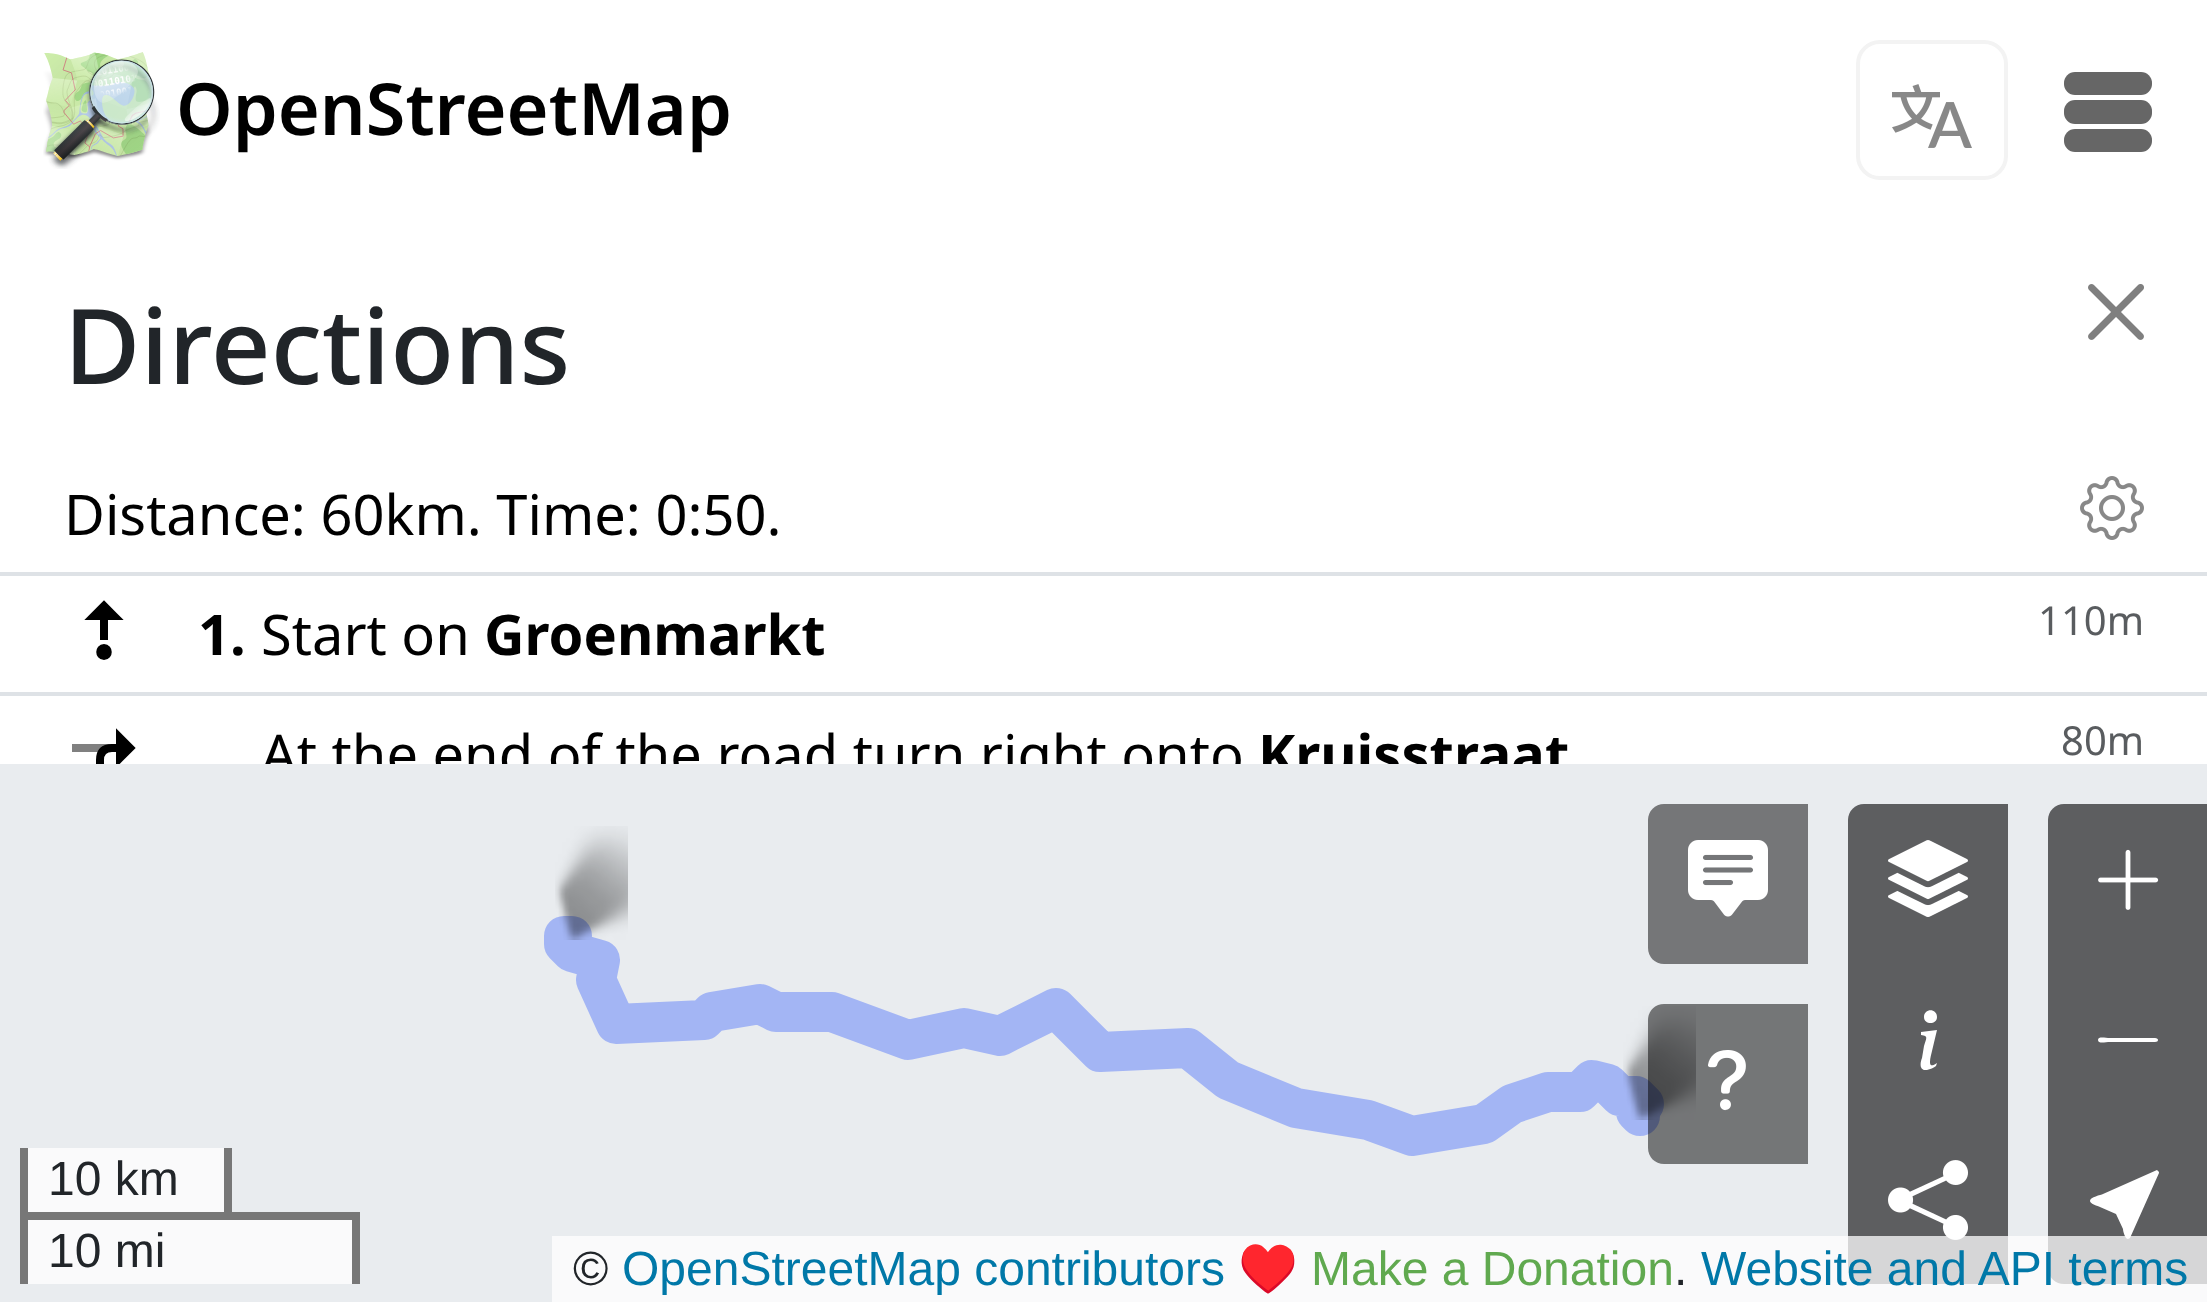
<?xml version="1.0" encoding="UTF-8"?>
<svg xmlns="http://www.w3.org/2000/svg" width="2207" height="1302">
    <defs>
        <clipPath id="clip1"><rect x="64" y="712" width="80" height="52"/></clipPath>
        <clipPath id="clip2"><rect x="0" y="220" width="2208" height="544"/></clipPath>
    </defs>
    <rect width="100%" height="100%" fill="#FFFFFF"/>
    <image x="43" y="52" width="117" height="117" href="img_01.png"/>
    <text x="176" y="135" font-family="Noto Sans" font-size="72" font-weight="600" fill="#000000">OpenStreetMap</text>
    <rect x="1858" y="42" width="148" height="136" rx="22" fill="none" stroke="#F3F3F3" stroke-width="4"/>
    <image x="1892" y="84" width="80" height="64" href="img_02.png"/>
    <rect x="2064" y="72" width="88" height="23" rx="11" fill="#666666"/>
    <rect x="2064" y="100" width="88" height="24" rx="11" fill="#666666"/>
    <rect x="2064" y="129" width="88" height="23" rx="11" fill="#666666"/>
    <image x="2088" y="284" width="56" height="56" href="img_03.png"/>
    <text x="64" y="384" font-family="Noto Sans" font-size="104.5" font-weight="500" fill="#212529">Directions</text>
    <rect x="0" y="572" width="2207" height="4" fill="#DEE2E6"/>
    <image x="2080" y="476" width="64" height="64" href="img_04.png"/>
    <text x="64" y="535" font-family="Noto Sans" font-size="56" fill="#000000">Distance: 60km. Time: 0:50.</text>
    <path d="M 104 656 C 109 656 109 648 104 648 C 99 648 99 656 104 656 M 104 640 V 608 M 114 616 L 104 606 L 94 616 Z" fill="none" stroke="#000000" stroke-width="8"/>
    <text x="198" y="655" font-family="Noto Sans" font-size="56" font-weight="700" fill="#000000">1.</text>
    <text x="261" y="655" font-family="Noto Sans" font-size="56" fill="#000000">Start on</text>
    <text x="484" y="655" font-family="Noto Sans" font-size="56" font-weight="700" fill="#000000">Groenmarkt</text>
    <rect x="0" y="692" width="2207" height="4" fill="#DEE2E6"/>
    <text x="2038" y="635" font-family="Noto Sans" font-size="40" fill="#595C5F">110m</text>
    <rect x="72" y="744" width="40" height="8" fill="#808080"/>
    <g clip-path="url(#clip1)">
        <path d="M 100 780 V 760 C 100 752 104 748 112 748 H 128 M 120 758 L 130 748 L 120 738 Z" fill="none" stroke="#000000" stroke-width="8"/>
    </g>
    <g clip-path="url(#clip2)">
        <text x="261" y="775" font-family="Noto Sans" font-size="56" fill="#000000">At the end of the road turn right onto</text>
        <text x="1258" y="775" font-family="Noto Sans" font-size="56" font-weight="700" fill="#000000">Kruisstraat</text>
    </g>
    <text x="2061" y="755" font-family="Noto Sans" font-size="40" fill="#595C5F">80m</text>
    <rect x="0" y="764" width="2207" height="538" fill="#E9ECEF"/>
    <rect x="28" y="1220" width="324" height="64" fill="#FAFAFB"/>
    <path d="M 1640 1116 L 1636 1112 L 1644 1104 L 1636 1096 H 1620 L 1608 1084 L 1592 1080 L 1580 1092 H 1548 L 1512 1104 L 1484 1124 L 1412 1136 L 1368 1120 L 1296 1108 L 1228 1080 L 1188 1048 L 1100 1052 L 1056 1008 L 1000 1036 L 964 1028 L 908 1040 L 832 1012 H 776 L 760 1004 L 712 1012 L 704 1020 L 616 1024 L 596 980 L 600 960 L 572 952 L 564 944 V 936 H 572" fill="none" stroke="#A3B5F4" stroke-width="40" stroke-linecap="round" stroke-linejoin="round"/>
    <image x="555" y="826" width="73" height="114" href="img_05.png"/>
    <image x="1623" y="1006" width="73" height="114" href="img_06.png"/>
    <rect x="28" y="1148" width="196" height="64" fill="#FAFAFB"/>
    <rect x="224" y="1148" width="8" height="72" fill="#777777"/>
    <rect x="20" y="1148" width="8" height="72" fill="#777777"/>
    <text x="48" y="1195" font-family="Liberation Sans" font-size="48" fill="#212529">10 km</text>
    <rect x="20" y="1212" width="340" height="8" fill="#777777"/>
    <rect x="352" y="1212" width="8" height="72" fill="#777777"/>
    <rect x="20" y="1212" width="8" height="72" fill="#777777"/>
    <text x="48" y="1267" font-family="Liberation Sans" font-size="48" fill="#212529">10 mi</text>
    <path d="M 1664 804 H 1808 V 964 H 1664 C 1655 964 1648 957 1648 948 V 820 C 1648 811 1655 804 1664 804 Z" fill="#757678"/>
    <image x="1688" y="840" width="80" height="77" href="img_07.png"/>
    <path d="M 1864 804 H 2008 V 964 H 1848 V 820 C 1848 811 1855 804 1864 804 Z" fill="#5D5E60"/>
    <image x="1888" y="840" width="80" height="77" href="img_08.png"/>
    <path d="M 2064 804 H 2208 V 964 H 2048 V 820 C 2048 811 2055 804 2064 804 Z" fill="#5D5E60"/>
    <image x="2098" y="849" width="61" height="61" href="img_09.png"/>
    <rect x="2048" y="964" width="159" height="160" fill="#5D5E60"/>
    <path d="M 2098 1040 C 2098 1036 2105 1038 2110 1038 H 2155 C 2157 1038 2158 1039 2158 1040 C 2158 1041 2157 1042 2155 1042 H 2110 C 2105 1042 2098 1044 2098 1040 Z" fill="#FFFFFF"/>
    <path d="M 1664 1004 H 1808 V 1164 H 1664 C 1655 1164 1648 1157 1648 1148 V 1020 C 1648 1011 1655 1004 1664 1004 Z" fill="#000000" fill-opacity="0.5"/>
    <image x="1708" y="1050" width="38" height="61" href="img_10.png"/>
    <rect x="1848" y="964" width="160" height="160" fill="#5D5E60"/>
    <path d="M 1937 1030 L 1921 1032 V 1035 C 1929 1036 1926 1038 1924 1046 L 1922 1058 C 1920 1063 1919 1071 1927 1070 C 1930 1069 1934 1068 1936 1066 L 1937 1063 C 1926 1071 1931 1056 1932 1051 Z M 1937 1017 C 1937 1025 1924 1025 1924 1017 C 1924 1008 1937 1008 1937 1017 Z" fill="#FFFFFF"/>
    <path d="M 1848 1124 H 2008 V 1284 H 1864 C 1855 1284 1848 1277 1848 1268 Z" fill="#5D5E60"/>
    <image x="1888" y="1160" width="80" height="80" href="img_11.png"/>
    <path d="M 2048 1124 H 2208 V 1284 H 2064 C 2055 1284 2048 1277 2048 1268 Z" fill="#5D5E60"/>
    <path d="M 2158 1171 C 2159 1172 2159 1172 2159 1173 L 2130 1238 L 2128 1239 C 2125 1239 2123 1231 2123 1229 L 2116 1214 L 2100 1207 C 2098 1206 2090 1204 2090 1201 C 2090 1197 2101 1195 2103 1194 L 2157 1170 Z" fill="#FFFFFF"/>
    <rect x="552" y="1236" width="1655" height="66" fill="#FFFFFF" fill-opacity="0.75"/>
    <text x="573" y="1285" font-family="Liberation Sans" font-size="48" fill="#212529">©</text>
    <text x="622" y="1285" font-family="Liberation Sans" font-size="48" fill="#0078A8">OpenStreetMap contributors</text>
    <text x="1238" y="1285" font-family="Noto Color Emoji" font-size="48" fill="#212529">♥️</text>
    <text x="1311" y="1285" font-family="Liberation Sans" font-size="48" fill="#60A94F">Make a Donation</text>
    <text x="1674" y="1285" font-family="Liberation Sans" font-size="48" fill="#212529">.</text>
    <text x="1701" y="1285" font-family="Liberation Sans" font-size="48" fill="#0078A8">Website and API terms</text>
</svg>
